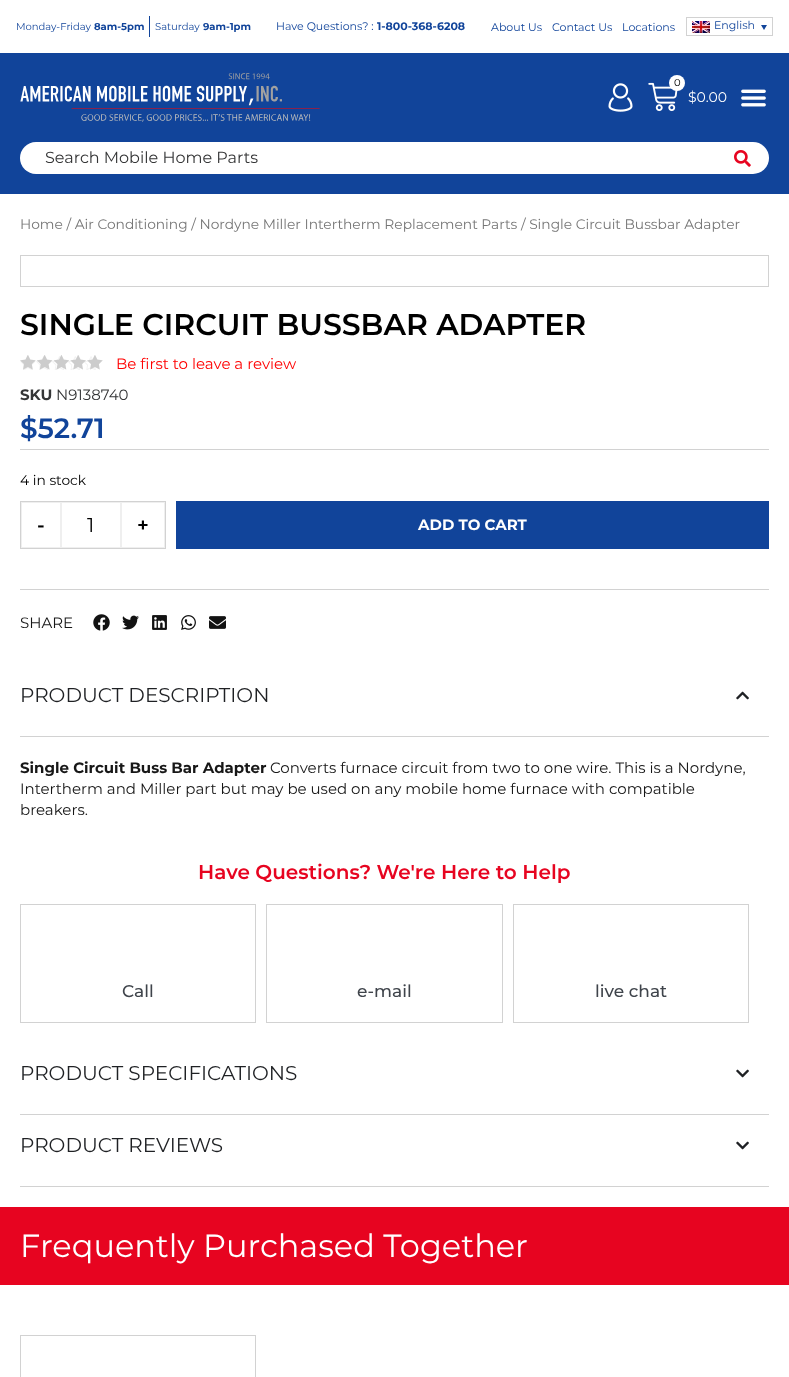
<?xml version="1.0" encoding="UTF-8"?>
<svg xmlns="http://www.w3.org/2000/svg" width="789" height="1377">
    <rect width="100%" height="100%" fill="#FFFFFF"/>
    <text x="16" y="30" font-family="Montserrat" font-size="10" fill="#11449A">Monday-Friday</text>
    <text x="94" y="30" font-family="Montserrat" font-size="10" font-weight="700" fill="#11449A">8am-5pm</text>
    <rect x="149" y="16" width="1" height="21" fill="#11449A"/>
    <text x="155" y="30" font-family="Montserrat" font-size="10" fill="#11449A">Saturday</text>
    <text x="203" y="30" font-family="Montserrat" font-size="10" font-weight="700" fill="#11449A">9am-1pm</text>
    <text x="276" y="30" font-family="Montserrat" font-size="11" fill="#11449A">Have Questions? :</text>
    <text x="377" y="30" font-family="Montserrat" font-size="11" font-weight="700" fill="#11449A">1-800-368-6208</text>
    <text x="491" y="31" font-family="Montserrat" font-size="11" fill="#11449A">About Us</text>
    <text x="552" y="31" font-family="Montserrat" font-size="11" fill="#11449A">Contact Us</text>
    <text x="622" y="31" font-family="Montserrat" font-size="11" fill="#11449A">Locations</text>
    <rect x="686.5" y="17.5" width="86" height="18" fill="none" stroke="#D2D2D2"/>
    <image x="692" y="21" width="18" height="12" href="img_01.png"/>
    <text x="714" y="29" font-family="Montserrat" font-size="11" fill="#11449A">English</text>
    <path d="M 761 25 H 767 L 764 30 Z" fill="#11449A"/>
    <rect x="0" y="53" width="789" height="141" fill="#11449A"/>
    <image x="20" y="73" width="300" height="49" href="img_02.png"/>
    <image x="608" y="83" width="25" height="29" href="img_03.png"/>
    <image x="648" y="82" width="30" height="30" href="img_04.png"/>
    <circle cx="677" cy="83" r="8" fill="#FFFFFF"/>
    <text x="674" y="86" font-family="Montserrat" font-size="10" fill="#000000">0</text>
    <text x="688" y="102" font-family="Montserrat" font-size="14" fill="#FFFFFF">$0.00</text>
    <image x="741" y="89" width="25" height="18" href="img_05.png"/>
    <rect x="20" y="142" width="749" height="32" rx="16" fill="#FFFFFF"/>
    <text x="45" y="163" font-family="Montserrat" font-size="16" fill="#353637">Search Mobile Home Parts</text>
    <image x="734" y="150" width="17" height="17" href="img_06.png"/>
    <text x="20" y="229" font-family="Montserrat" font-size="13.8" fill="#767676">Home / Air Conditioning / Nordyne Miller Intertherm Replacement Parts / Single Circuit Bussbar Adapter</text>
    <rect x="20.5" y="255.5" width="748" height="31" fill="none" stroke="#D2D2D2"/>
    <text x="20" y="335" font-family="Montserrat" font-size="30" font-weight="600" fill="#000000">SINGLE CIRCUIT BUSSBAR ADAPTER</text>
    <image x="20" y="356" width="76" height="14" href="img_08.png"/>
    <image x="20" y="355" width="83" height="15" href="img_07.png"/>
    <text x="116" y="369" font-family="Montserrat" font-size="15" fill="#FF0000">Be first to leave a review</text>
    <text x="20" y="400" font-family="Montserrat" font-size="15" font-weight="700" fill="#353637">SKU</text>
    <text x="56" y="400" font-family="Montserrat" font-size="15" fill="#353637">N9138740</text>
    <text x="20" y="438" font-family="Montserrat" font-size="28" font-weight="600" fill="#11449A">$52.71</text>
    <rect x="20" y="449" width="749" height="1" fill="#D2D2D2"/>
    <rect x="20" y="589" width="749" height="1" fill="#D2D2D2"/>
    <text x="20" y="485" font-family="Montserrat" font-size="13.8" fill="#000000">4 in stock</text>
    <rect x="20.5" y="501.5" width="145" height="47" fill="none" stroke="#D2D2D2"/>
    <rect x="21.5" y="502.5" width="39" height="45" fill="none" stroke="#EFEFEF"/>
    <text x="37" y="532" font-family="Montserrat" font-size="20" font-weight="600" fill="#000000">-</text>
    <rect x="61.5" y="502.5" width="59" height="45" fill="none" stroke="#EFEFEF"/>
    <text x="87" y="532" font-family="Montserrat" font-size="20" fill="#000000">1</text>
    <rect x="121.5" y="502.5" width="43" height="45" fill="none" stroke="#EFEFEF"/>
    <text x="137" y="532" font-family="Montserrat" font-size="20" font-weight="600" fill="#000000">+</text>
    <rect x="176" y="501" width="593" height="48" fill="#11449A"/>
    <text x="418" y="530" font-family="Montserrat" font-size="15" font-weight="700" fill="#FFFFFF">ADD TO CART</text>
    <text x="20" y="628" font-family="Montserrat" font-size="15" fill="#171717">SHARE</text>
    <image x="93" y="614" width="17" height="17" href="img_09.png"/>
    <image x="122" y="615" width="17" height="15" href="img_10.png"/>
    <image x="152" y="615" width="15" height="15" href="img_11.png"/>
    <image x="181" y="615" width="15" height="15" href="img_12.png"/>
    <image x="209" y="616" width="17" height="13" href="img_13.png"/>
    <rect x="20" y="736" width="749" height="1" fill="#D2D2D2"/>
    <text x="20" y="702" font-family="Montserrat" font-size="20" fill="#1F2124">PRODUCT DESCRIPTION</text>
    <image x="736" y="691" width="13" height="9" href="img_14.png"/>
    <text x="20" y="773" font-family="Montserrat" font-size="15" font-weight="700" fill="#171717">Single Circuit Buss Bar Adapter</text>
    <text x="270" y="773" font-family="Montserrat" font-size="15" fill="#171717">Converts furnace circuit from two to one wire. This is a Nordyne,</text>
    <text font-family="Montserrat" font-size="15" fill="#171717">
        <tspan x="20" y="794">Intertherm and Miller part but may be used on any mobile home furnace with compatible</tspan>
        <tspan x="20" y="815">breakers.</tspan>
    </text>
    <text x="198" y="879" font-family="Montserrat" font-size="20" font-weight="600" fill="#E70420">Have Questions? We're Here to Help</text>
    <rect x="20.5" y="904.5" width="235" height="118" fill="none" stroke="#D2D2D2"/>
    <text x="122" y="997" font-family="Montserrat" font-size="17" font-weight="500" fill="#3F444B">Call</text>
    <rect x="266.5" y="904.5" width="236" height="118" fill="none" stroke="#D2D2D2"/>
    <text x="357" y="997" font-family="Montserrat" font-size="17" font-weight="500" fill="#3F444B">e-mail</text>
    <rect x="513.5" y="904.5" width="235" height="118" fill="none" stroke="#D2D2D2"/>
    <text x="595" y="997" font-family="Montserrat" font-size="17" font-weight="500" fill="#3F444B">live chat</text>
    <rect x="20" y="1114" width="749" height="1" fill="#D2D2D2"/>
    <text x="20" y="1080" font-family="Montserrat" font-size="20" fill="#1F2124">PRODUCT SPECIFICATIONS</text>
    <image x="736" y="1069" width="13" height="9" href="img_15.png"/>
    <rect x="20" y="1186" width="749" height="1" fill="#D2D2D2"/>
    <text x="20" y="1152" font-family="Montserrat" font-size="20" fill="#1F2124">PRODUCT REVIEWS</text>
    <image x="736" y="1141" width="13" height="9" href="img_15.png"/>
    <rect x="0" y="1207" width="789" height="78" fill="#E70420"/>
    <text x="20" y="1257" font-family="Montserrat" font-size="32" fill="#FFFFFF">Frequently Purchased Together</text>
    <rect x="20.5" y="1335.5" width="235" height="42" fill="none" stroke="#D2D2D2"/>
</svg>
